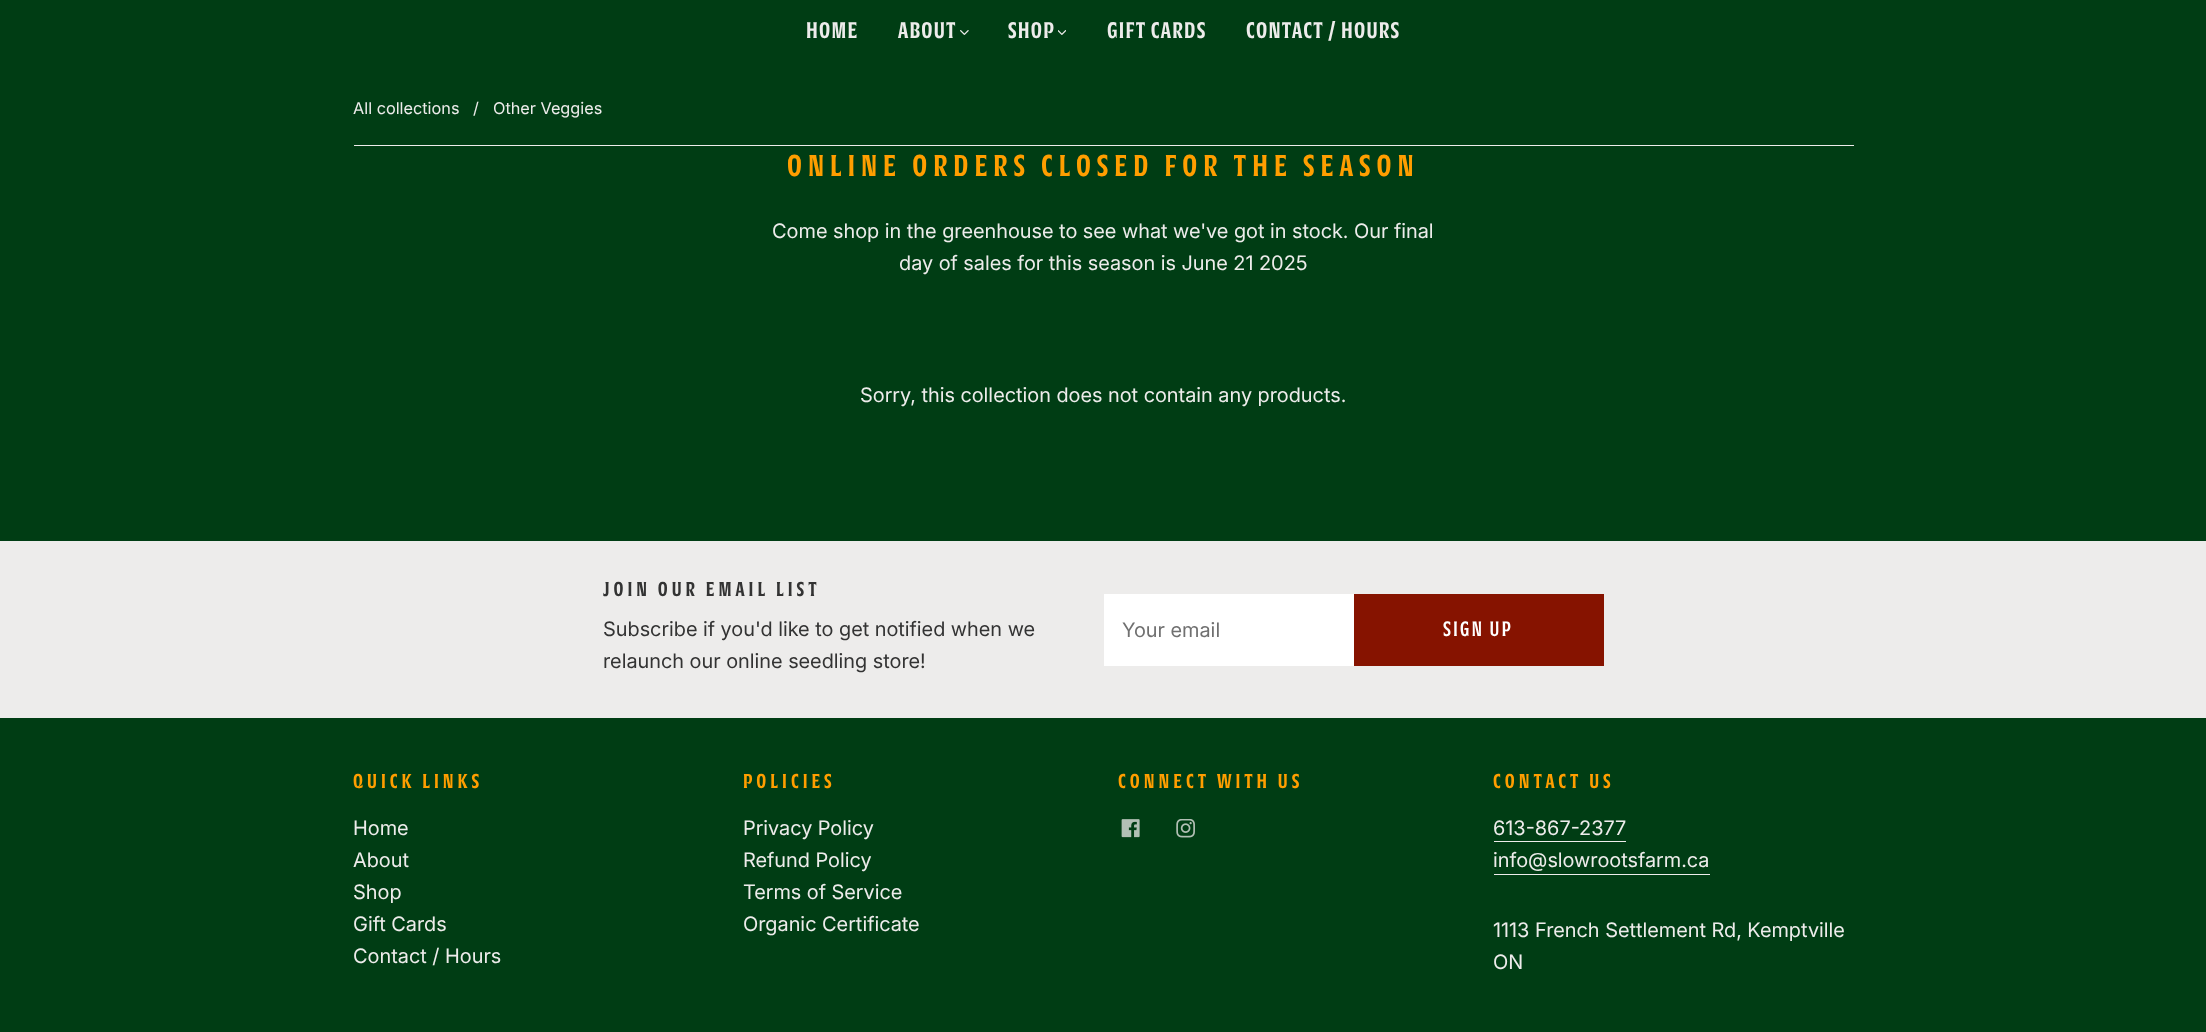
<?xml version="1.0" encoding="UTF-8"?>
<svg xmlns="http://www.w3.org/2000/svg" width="2206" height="1032">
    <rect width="100%" height="100%" fill="#003D14"/>
    <text x="806" y="38" font-family="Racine" font-size="22.5" font-weight="600" letter-spacing="1.25" fill="#EDECEB">HOME</text>
    <text x="898" y="38" font-family="Racine" font-size="22.5" font-weight="600" letter-spacing="1.25" fill="#EDECEB">ABOUT</text>
    <image x="960" y="30" width="9" height="5" href="img_01.png"/>
    <text x="1008" y="38" font-family="Racine" font-size="22.5" font-weight="600" letter-spacing="1.25" fill="#EDECEB">SHOP</text>
    <image x="1058" y="30" width="8" height="5" href="img_02.png"/>
    <text x="1107" y="38" font-family="Racine" font-size="22.5" font-weight="600" letter-spacing="1.25" fill="#EDECEB">GIFT CARDS</text>
    <text x="1246" y="38" font-family="Racine" font-size="22.5" font-weight="600" letter-spacing="1.25" fill="#EDECEB">CONTACT / HOURS</text>
    <rect x="354" y="145" width="1500" height="1" fill="#EDECEB"/>
    <text x="353" y="114" font-family="Inter" font-size="16.25" fill="#EDECEB">All collections</text>
    <text x="473" y="114" font-family="Inter" font-size="16.25" fill="#EDECEB">/</text>
    <text x="493" y="114" font-family="Inter" font-size="16.25" fill="#EDECEB">Other Veggies</text>
    <text x="787" y="176" font-family="Racine" font-size="30" font-weight="600" letter-spacing="6" fill="#FF9E00">ONLINE ORDERS CLOSED FOR THE SEASON</text>
    <text x="772" y="238" font-family="'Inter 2'" font-size="20" fill="#EDECEB">Come shop in the greenhouse to see what we've got in stock. Our final</text>
    <text x="899" y="270" font-family="'Inter 2'" font-size="20" fill="#EDECEB">day of sales for this season is June 21 2025</text>
    <text x="860" y="402" font-family="'Inter 2'" font-size="20" fill="#EDECEB">Sorry, this collection does not contain any products.</text>
    <rect x="0" y="541" width="2206" height="177" fill="#EDECEB"/>
    <text x="603" y="596" font-family="Racine" font-size="20" font-weight="600" letter-spacing="4" fill="#333333">JOIN OUR EMAIL LIST</text>
    <text font-family="'Inter 2'" font-size="20" fill="#333333">
        <tspan x="603" y="636">Subscribe if you'd like to get notified when we</tspan>
        <tspan x="603" y="668">relaunch our online seedling store!</tspan>
    </text>
    <rect x="1104" y="594" width="250" height="72" fill="#FFFFFF"/>
    <text x="1122" y="637" font-family="'Inter 2'" font-size="20" fill="#707070">Your email</text>
    <rect x="1354" y="594" width="250" height="72" fill="#861300"/>
    <text x="1443" y="636" font-family="Racine" font-size="20" font-weight="700" letter-spacing="2.5" fill="#FFFFFF">SIGN UP</text>
    <text x="353" y="788" font-family="Racine" font-size="20" font-weight="600" letter-spacing="4" fill="#FF9E00">QUICK LINKS</text>
    <text font-family="'Inter 2'" font-size="20" fill="#EDECEB">
        <tspan x="353" y="835">Home</tspan>
        <tspan x="353" y="867">About</tspan>
        <tspan x="353" y="899">Shop</tspan>
        <tspan x="353" y="931">Gift Cards</tspan>
        <tspan x="353" y="963">Contact / Hours</tspan>
    </text>
    <text x="743" y="788" font-family="Racine" font-size="20" font-weight="600" letter-spacing="4" fill="#FF9E00">POLICIES</text>
    <text font-family="'Inter 2'" font-size="20" fill="#EDECEB">
        <tspan x="743" y="835">Privacy Policy</tspan>
        <tspan x="743" y="867">Refund Policy</tspan>
        <tspan x="743" y="899">Terms of Service</tspan>
        <tspan x="743" y="931">Organic Certificate</tspan>
    </text>
    <text x="1118" y="788" font-family="Racine" font-size="20" font-weight="600" letter-spacing="4" fill="#FF9E00">CONNECT WITH US</text>
    <image x="1121" y="819" width="19" height="19" href="img_03.png"/>
    <image x="1176" y="819" width="19" height="19" href="img_04.png"/>
    <text x="1493" y="788" font-family="Racine" font-size="20" font-weight="600" letter-spacing="4" fill="#FF9E00">CONTACT US</text>
    <text x="1493" y="835" font-family="'Inter 2'" font-size="20" fill="#EDECEB">613-867-2377</text>
    <rect x="1494" y="841" width="132" height="1" fill="#EDECEB"/>
    <text x="1493" y="867" font-family="'Inter 2'" font-size="20" fill="#EDECEB">info@slowrootsfarm.ca</text>
    <rect x="1494" y="874" width="216" height="1" fill="#EDECEB"/>
    <text font-family="'Inter 2'" font-size="20" fill="#EDECEB">
        <tspan x="1493" y="937">1113 French Settlement Rd, Kemptville</tspan>
        <tspan x="1493" y="969">ON</tspan>
    </text>
</svg>
